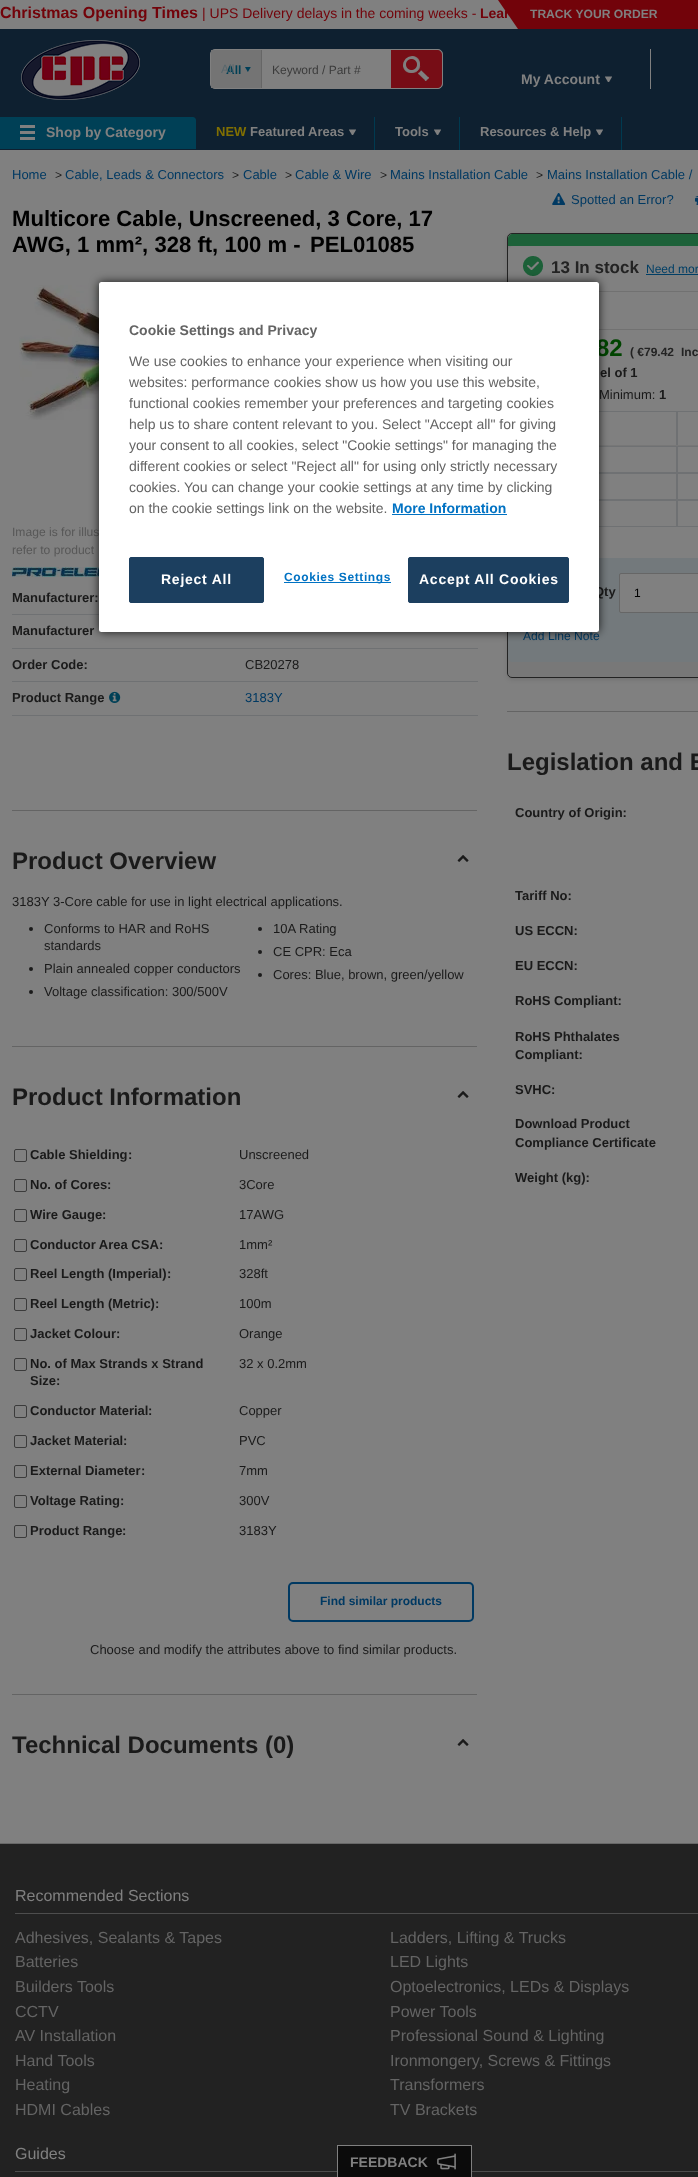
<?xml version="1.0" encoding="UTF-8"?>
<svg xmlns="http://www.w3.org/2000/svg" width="698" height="2177">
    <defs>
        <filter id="blur1" x="-50%" y="-200%" width="200%" height="500%"><feGaussianBlur stdDeviation="2"/></filter>
        <filter id="blur2" x="-50%" y="-200%" width="200%" height="500%"><feGaussianBlur stdDeviation="5"/></filter>
    </defs>
    <rect width="100%" height="100%" fill="#808080"/>
    <text x="0" y="18" font-family="Liberation Sans" font-size="16" font-weight="700" fill="#72030A">Christmas Opening Times</text>
    <text x="202" y="18" font-family="Liberation Sans" font-size="14" fill="#72030A">| UPS Delivery delays in the coming weeks -</text>
    <text x="480" y="18" font-family="Liberation Sans" font-size="14" font-weight="700" fill="#72030A">Lear</text>
    <path d="M 498 0 L 518 29 H 698 V 0 Z" fill="#72030A"/>
    <text x="530" y="18" font-family="Liberation Sans" font-size="12.1" font-weight="700" fill="#808080">TRACK YOUR ORDER</text>
    <rect x="0" y="29" width="698" height="121" fill="#0E2030"/>
    <image x="21" y="40" width="119" height="60" href="img_01.png"/>
    <rect x="210.5" y="49.5" width="232" height="39" rx="4.5" fill="#808080" stroke="#808080"/>
    <rect x="211" y="50" width="50" height="38" fill="#747474"/>
    <text x="226" y="74" font-family="Liberation Sans" font-size="12" font-weight="700" fill="#004056">All</text>
    <text x="221" y="73" font-family="Liberation Sans" font-size="12" fill="#58676D">All</text>
    <rect x="261" y="50" width="1" height="38" fill="#666666"/>
    <image x="245" y="67" width="6" height="5" href="img_02.png"/>
    <text x="272" y="74" font-family="Liberation Sans" font-size="12" fill="#3B3B3B">Keyword / Part #</text>
    <path d="M 391 50 H 437 C 440 50 442 52 442 55 V 83 C 442 86 440 88 437 88 H 391 Z" fill="#770D16"/>
    <image x="403" y="56" width="26" height="25" href="img_03.png"/>
    <text x="521" y="84" font-family="Liberation Sans" font-size="14" font-weight="700" fill="#808080">My Account</text>
    <image x="605" y="76" width="7" height="6" href="img_04.png"/>
    <rect x="650" y="49" width="1" height="40" fill="#808080"/>
    <path d="M 0 117 H 193 C 194.5 117 196 118.5 196 120 V 149 H 0 Z" fill="#004056"/>
    <image x="20" y="125" width="15" height="15" href="img_05.png"/>
    <text x="46" y="137" font-family="Liberation Sans" font-size="14" font-weight="700" fill="#808080">Shop by Category</text>
    <rect x="374" y="117" width="1" height="33" fill="#003A50"/>
    <text x="216" y="136" font-family="Liberation Sans" font-size="13" font-weight="700" fill="#806F02">NEW</text>
    <text x="250" y="136" font-family="Liberation Sans" font-size="13" font-weight="700" fill="#808080">Featured Areas</text>
    <image x="349" y="129" width="7" height="6" href="img_04.png"/>
    <rect x="459" y="117" width="1" height="33" fill="#003A50"/>
    <text x="395" y="136" font-family="Liberation Sans" font-size="13" font-weight="700" fill="#808080">Tools</text>
    <image x="434" y="129" width="7" height="6" href="img_04.png"/>
    <rect x="621" y="117" width="1" height="33" fill="#003A50"/>
    <text x="480" y="136" font-family="Liberation Sans" font-size="13" font-weight="700" fill="#808080">Resources &amp; Help</text>
    <image x="596" y="129" width="7" height="6" href="img_04.png"/>
    <text x="12" y="179" font-family="Liberation Sans" font-size="13" fill="#003962">Home</text>
    <text x="55" y="179" font-family="Liberation Sans" font-size="12.1" fill="#1A1A1A">&gt;</text>
    <text x="65" y="179" font-family="Liberation Sans" font-size="13" fill="#003962">Cable, Leads &amp; Connectors</text>
    <text x="232" y="179" font-family="Liberation Sans" font-size="12.1" fill="#1A1A1A">&gt;</text>
    <text x="243" y="179" font-family="Liberation Sans" font-size="13" fill="#003962">Cable</text>
    <text x="285" y="179" font-family="Liberation Sans" font-size="12.1" fill="#1A1A1A">&gt;</text>
    <text x="295" y="179" font-family="Liberation Sans" font-size="13" fill="#003962">Cable &amp; Wire</text>
    <text x="380" y="179" font-family="Liberation Sans" font-size="12.1" fill="#1A1A1A">&gt;</text>
    <text x="390" y="179" font-family="Liberation Sans" font-size="13" fill="#003962">Mains Installation Cable</text>
    <text x="536" y="179" font-family="Liberation Sans" font-size="12.1" fill="#1A1A1A">&gt;</text>
    <text x="547" y="179" font-family="Liberation Sans" font-size="13" fill="#003962">Mains Installation Cable /</text>
    <image x="552" y="193" width="14" height="12" href="img_06.png"/>
    <text x="571" y="204" font-family="Liberation Sans" font-size="13" fill="#003962">Spotted an Error?</text>
    <image x="695" y="196" width="3" height="9" href="img_07.png"/>
    <text font-family="Liberation Sans" font-size="22.1" font-weight="700" fill="#000000">
        <tspan x="12" y="226">Multicore Cable, Unscreened, 3 Core, 17</tspan>
        <tspan x="12" y="252">AWG, 1 mm², 328 ft, 100 m -</tspan>
    </text>
    <text x="310" y="252" font-family="Liberation Sans" font-size="22.1" font-weight="700" fill="#000000">PEL01085</text>
    <image x="19" y="285" width="80" height="135" href="img_08.png"/>
    <text font-family="Liberation Sans" font-size="12.1" fill="#575757">
        <tspan x="12" y="536">Image is for illus</tspan>
        <tspan x="12" y="554">refer to product</tspan>
    </text>
    <image x="12" y="567" width="87" height="10" href="img_09.png"/>
    <rect x="12" y="614" width="87" height="1" fill="#6F7173"/>
    <text x="12" y="602" font-family="Liberation Sans" font-size="13" font-weight="700" fill="#1A1A1A">Manufacturer:</text>
    <rect x="12" y="648" width="466" height="1" fill="#6F7173"/>
    <text x="12" y="635" font-family="Liberation Sans" font-size="13" font-weight="700" fill="#1A1A1A">Manufacturer</text>
    <rect x="12" y="681" width="466" height="1" fill="#6F7173"/>
    <text x="12" y="669" font-family="Liberation Sans" font-size="13" font-weight="700" fill="#1A1A1A">Order Code:</text>
    <text x="245" y="669" font-family="Liberation Sans" font-size="13" fill="#1A1A1A">CB20278</text>
    <rect x="12" y="715" width="466" height="1" fill="#6F7173"/>
    <text x="12" y="702" font-family="Liberation Sans" font-size="13" font-weight="700" fill="#1A1A1A">Product Range</text>
    <image x="109" y="691" width="12" height="12" href="img_10.png"/>
    <text x="245" y="702" font-family="Liberation Sans" font-size="13" fill="#003962">3183Y</text>
    <rect x="12" y="810" width="465" height="1" fill="#646464"/>
    <text x="12" y="869" font-family="Liberation Sans" font-size="24" font-weight="700" fill="#1A1A1A">Product Overview</text>
    <image x="457" y="855" width="12" height="7" href="img_11.png"/>
    <text x="12" y="906" font-family="Liberation Sans" font-size="13" fill="#1A1A1A">3183Y 3-Core cable for use in light electrical applications.</text>
    <circle cx="31" cy="929" r="2" fill="#1A1A1A"/>
    <text font-family="Liberation Sans" font-size="13" fill="#1A1A1A">
        <tspan x="44" y="933">Conforms to HAR and RoHS</tspan>
        <tspan x="44" y="950">standards</tspan>
    </text>
    <circle cx="260" cy="929" r="2" fill="#1A1A1A"/>
    <text x="273" y="933" font-family="Liberation Sans" font-size="13" fill="#1A1A1A">10A Rating</text>
    <circle cx="260" cy="952" r="2" fill="#1A1A1A"/>
    <text x="273" y="956" font-family="Liberation Sans" font-size="13" fill="#1A1A1A">CE CPR: Eca</text>
    <circle cx="31" cy="969" r="2" fill="#1A1A1A"/>
    <text x="44" y="973" font-family="Liberation Sans" font-size="13" fill="#1A1A1A">Plain annealed copper conductors</text>
    <circle cx="260" cy="975" r="2" fill="#1A1A1A"/>
    <text x="273" y="979" font-family="Liberation Sans" font-size="13" fill="#1A1A1A">Cores: Blue, brown, green/yellow</text>
    <circle cx="31" cy="992" r="2" fill="#1A1A1A"/>
    <text x="44" y="996" font-family="Liberation Sans" font-size="13" fill="#1A1A1A">Voltage classification: 300/500V</text>
    <rect x="12" y="1046" width="465" height="1" fill="#646464"/>
    <text x="12" y="1105" font-family="Liberation Sans" font-size="24" font-weight="700" fill="#1A1A1A">Product Information</text>
    <image x="457" y="1091" width="12" height="7" href="img_11.png"/>
    <rect x="14.5" y="1149.5" width="12" height="12" rx="1.5" fill="none" stroke="#3B3B3B"/>
    <text x="30" y="1159" font-family="Liberation Sans" font-size="13" font-weight="700" fill="#1A1A1A">Cable Shielding</text>
    <text x="128" y="1159" font-family="Liberation Sans" font-size="13" font-weight="700" fill="#1A1A1A">:</text>
    <text x="239" y="1159" font-family="Liberation Sans" font-size="13" fill="#1A1A1A">Unscreened</text>
    <rect x="14.5" y="1179.5" width="12" height="12" rx="1.5" fill="none" stroke="#3B3B3B"/>
    <text x="30" y="1189" font-family="Liberation Sans" font-size="13" font-weight="700" fill="#1A1A1A">No. of Cores</text>
    <text x="107" y="1189" font-family="Liberation Sans" font-size="13" font-weight="700" fill="#1A1A1A">:</text>
    <text x="239" y="1189" font-family="Liberation Sans" font-size="13" fill="#1A1A1A">3Core</text>
    <rect x="14.5" y="1209.5" width="12" height="12" rx="1.5" fill="none" stroke="#3B3B3B"/>
    <text x="30" y="1219" font-family="Liberation Sans" font-size="13" font-weight="700" fill="#1A1A1A">Wire Gauge</text>
    <text x="102" y="1219" font-family="Liberation Sans" font-size="13" font-weight="700" fill="#1A1A1A">:</text>
    <text x="239" y="1219" font-family="Liberation Sans" font-size="13" fill="#1A1A1A">17AWG</text>
    <rect x="14.5" y="1239.5" width="12" height="12" rx="1.5" fill="none" stroke="#3B3B3B"/>
    <text x="30" y="1249" font-family="Liberation Sans" font-size="13" font-weight="700" fill="#1A1A1A">Conductor Area CSA</text>
    <text x="159" y="1249" font-family="Liberation Sans" font-size="13" font-weight="700" fill="#1A1A1A">:</text>
    <text x="239" y="1249" font-family="Liberation Sans" font-size="13" fill="#1A1A1A">1mm²</text>
    <rect x="14.5" y="1268.5" width="12" height="12" rx="1.5" fill="none" stroke="#3B3B3B"/>
    <text x="30" y="1278" font-family="Liberation Sans" font-size="13" font-weight="700" fill="#1A1A1A">Reel Length (Imperial)</text>
    <text x="167" y="1278" font-family="Liberation Sans" font-size="13" font-weight="700" fill="#1A1A1A">:</text>
    <text x="239" y="1278" font-family="Liberation Sans" font-size="13" fill="#1A1A1A">328ft</text>
    <rect x="14.5" y="1298.5" width="12" height="12" rx="1.5" fill="none" stroke="#3B3B3B"/>
    <text x="30" y="1308" font-family="Liberation Sans" font-size="13" font-weight="700" fill="#1A1A1A">Reel Length (Metric)</text>
    <text x="155" y="1308" font-family="Liberation Sans" font-size="13" font-weight="700" fill="#1A1A1A">:</text>
    <text x="239" y="1308" font-family="Liberation Sans" font-size="13" fill="#1A1A1A">100m</text>
    <rect x="14.5" y="1328.5" width="12" height="12" rx="1.5" fill="none" stroke="#3B3B3B"/>
    <text x="30" y="1338" font-family="Liberation Sans" font-size="13" font-weight="700" fill="#1A1A1A">Jacket Colour</text>
    <text x="116" y="1338" font-family="Liberation Sans" font-size="13" font-weight="700" fill="#1A1A1A">:</text>
    <text x="239" y="1338" font-family="Liberation Sans" font-size="13" fill="#1A1A1A">Orange</text>
    <rect x="14.5" y="1358.5" width="12" height="12" rx="1.5" fill="none" stroke="#3B3B3B"/>
    <text font-family="Liberation Sans" font-size="13" font-weight="700" fill="#1A1A1A">
        <tspan x="30" y="1368">No. of Max Strands x Strand</tspan>
        <tspan x="30" y="1385">Size</tspan>
    </text>
    <text x="56" y="1385" font-family="Liberation Sans" font-size="13" font-weight="700" fill="#1A1A1A">:</text>
    <text x="239" y="1368" font-family="Liberation Sans" font-size="13" fill="#1A1A1A">32 x 0.2mm</text>
    <rect x="14.5" y="1405.5" width="12" height="12" rx="1.5" fill="none" stroke="#3B3B3B"/>
    <text x="30" y="1415" font-family="Liberation Sans" font-size="13" font-weight="700" fill="#1A1A1A">Conductor Material</text>
    <text x="148" y="1415" font-family="Liberation Sans" font-size="13" font-weight="700" fill="#1A1A1A">:</text>
    <text x="239" y="1415" font-family="Liberation Sans" font-size="13" fill="#1A1A1A">Copper</text>
    <rect x="14.5" y="1435.5" width="12" height="12" rx="1.5" fill="none" stroke="#3B3B3B"/>
    <text x="30" y="1445" font-family="Liberation Sans" font-size="13" font-weight="700" fill="#1A1A1A">Jacket Material</text>
    <text x="123" y="1445" font-family="Liberation Sans" font-size="13" font-weight="700" fill="#1A1A1A">:</text>
    <text x="239" y="1445" font-family="Liberation Sans" font-size="13" fill="#1A1A1A">PVC</text>
    <rect x="14.5" y="1465.5" width="12" height="12" rx="1.5" fill="none" stroke="#3B3B3B"/>
    <text x="30" y="1475" font-family="Liberation Sans" font-size="13" font-weight="700" fill="#1A1A1A">External Diameter</text>
    <text x="141" y="1475" font-family="Liberation Sans" font-size="13" font-weight="700" fill="#1A1A1A">:</text>
    <text x="239" y="1475" font-family="Liberation Sans" font-size="13" fill="#1A1A1A">7mm</text>
    <rect x="14.5" y="1495.5" width="12" height="12" rx="1.5" fill="none" stroke="#3B3B3B"/>
    <text x="30" y="1505" font-family="Liberation Sans" font-size="13" font-weight="700" fill="#1A1A1A">Voltage Rating</text>
    <text x="120" y="1505" font-family="Liberation Sans" font-size="13" font-weight="700" fill="#1A1A1A">:</text>
    <text x="239" y="1505" font-family="Liberation Sans" font-size="13" fill="#1A1A1A">300V</text>
    <rect x="14.5" y="1525.5" width="12" height="12" rx="1.5" fill="none" stroke="#3B3B3B"/>
    <text x="30" y="1535" font-family="Liberation Sans" font-size="13" font-weight="700" fill="#1A1A1A">Product Range</text>
    <text x="122" y="1535" font-family="Liberation Sans" font-size="13" font-weight="700" fill="#1A1A1A">:</text>
    <text x="239" y="1535" font-family="Liberation Sans" font-size="13" fill="#1A1A1A">3183Y</text>
    <rect x="289" y="1583" width="184" height="38" rx="4" fill="none" stroke="#003962" stroke-width="2"/>
    <text x="320" y="1605" font-family="Liberation Sans" font-size="12" font-weight="700" fill="#003962">Find similar products</text>
    <text x="90" y="1654" font-family="Liberation Sans" font-size="13" fill="#1A1A1A">Choose and modify the attributes above to find similar products.</text>
    <rect x="12" y="1694" width="465" height="1" fill="#646464"/>
    <text x="12" y="1753" font-family="Liberation Sans" font-size="24" font-weight="700" fill="#1A1A1A">Technical Documents (0)</text>
    <image x="457" y="1739" width="12" height="7" href="img_11.png"/>
    <rect x="507" y="235" width="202" height="445" rx="5" fill="#000000" fill-opacity="0.1" filter="url(#blur1)"/>
    <rect x="507.5" y="233.5" width="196" height="444" rx="4.5" fill="#787878" stroke="#232323"/>
    <path d="M 513 234 H 698 C 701 234 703 236 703 239 V 246 H 508 V 239 C 508 236 510 234 513 234 Z" fill="#1D6139"/>
    <rect x="508" y="246" width="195" height="312" rx="5" fill="#808080"/>
    <image x="523" y="256" width="20" height="20" href="img_12.png"/>
    <text x="551" y="273" font-family="Liberation Sans" font-size="17" font-weight="700" fill="#232323">13 In stock</text>
    <text x="646" y="273" font-family="Liberation Sans" font-size="12" fill="#013F66">Need mor</text>
    <rect x="646" y="274" width="52" height="1" fill="#013F66"/>
    <rect x="599" y="291" width="99" height="1" fill="#717171"/>
    <rect x="599" y="329" width="99" height="1" fill="#717171"/>
    <text x="596" y="356" font-family="Liberation Sans" font-size="24" font-weight="700" fill="#004400">82</text>
    <text x="630" y="356" font-family="Liberation Sans" font-size="12" font-weight="700" fill="#232323">( €79.42</text>
    <text x="681" y="356" font-family="Liberation Sans" font-size="12" font-weight="700" fill="#232323">Inc</text>
    <text x="600" y="377" font-family="Liberation Sans" font-size="13" font-weight="700" fill="#1A1A1A">el of 1</text>
    <text x="599" y="399" font-family="Liberation Sans" font-size="13" fill="#1A1A1A">Minimum:</text>
    <text x="659" y="399" font-family="Liberation Sans" font-size="13" font-weight="700" fill="#1A1A1A">1</text>
    <rect x="523.5" y="411.5" width="153" height="34" fill="none" stroke="#6F7173"/>
    <rect x="677.5" y="411.5" width="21" height="34" fill="none" stroke="#6F7173"/>
    <rect x="599" y="445" width="99" height="1" fill="#777777"/>
    <rect x="523.5" y="446.5" width="153" height="26" fill="none" stroke="#6F7173"/>
    <rect x="677.5" y="446.5" width="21" height="26" fill="none" stroke="#6F7173"/>
    <rect x="523.5" y="473.5" width="153" height="26" fill="none" stroke="#6F7173"/>
    <rect x="677.5" y="473.5" width="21" height="26" fill="none" stroke="#6F7173"/>
    <rect x="523.5" y="500.5" width="153" height="26" fill="none" stroke="#6F7173"/>
    <rect x="677.5" y="500.5" width="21" height="26" fill="none" stroke="#6F7173"/>
    <path d="M 508 558 H 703 V 657 C 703 660 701 662 698 662 H 513 C 510 662 508 660 508 657 Z" fill="#73797C"/>
    <text x="594" y="596" font-family="Liberation Sans" font-size="13" font-weight="700" fill="#1A1A1A">Qty</text>
    <rect x="619.5" y="573.5" width="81" height="39" rx="1.5" fill="#808080" stroke="#666666"/>
    <text x="634" y="597" font-family="Liberation Sans" font-size="12" fill="#000000">1</text>
    <text x="523" y="640" font-family="Liberation Sans" font-size="12.1" fill="#003962">Add Line Note</text>
    <rect x="507" y="711" width="191" height="1" fill="#646464"/>
    <text x="507" y="770" font-family="Liberation Sans" font-size="24" font-weight="700" fill="#1A1A1A">Legislation and E</text>
    <text x="515" y="817" font-family="Liberation Sans" font-size="13" font-weight="700" fill="#1A1A1A">Country of Origin:</text>
    <text x="515" y="900" font-family="Liberation Sans" font-size="13" font-weight="700" fill="#1A1A1A">Tariff No:</text>
    <text x="515" y="935" font-family="Liberation Sans" font-size="13" font-weight="700" fill="#1A1A1A">US ECCN:</text>
    <text x="515" y="970" font-family="Liberation Sans" font-size="13" font-weight="700" fill="#1A1A1A">EU ECCN:</text>
    <text x="515" y="1005" font-family="Liberation Sans" font-size="13" font-weight="700" fill="#1A1A1A">RoHS Compliant:</text>
    <text font-family="Liberation Sans" font-size="13" font-weight="700" fill="#1A1A1A">
        <tspan x="515" y="1041">RoHS Phthalates</tspan>
        <tspan x="515" y="1059">Compliant:</tspan>
    </text>
    <text x="515" y="1094" font-family="Liberation Sans" font-size="13" font-weight="700" fill="#1A1A1A">SVHC:</text>
    <text font-family="Liberation Sans" font-size="13" font-weight="700" fill="#1A1A1A">
        <tspan x="515" y="1128">Download Product</tspan>
        <tspan x="515" y="1147">Compliance Certificate</tspan>
    </text>
    <text x="515" y="1182" font-family="Liberation Sans" font-size="13" font-weight="700" fill="#1A1A1A">Weight (kg):</text>
    <rect x="0" y="1843" width="698" height="1" fill="#676767"/>
    <rect x="0" y="1844" width="698" height="333" fill="#222222"/>
    <rect x="15" y="1913" width="683" height="1" fill="#4D4D4D"/>
    <text x="15" y="1901" font-family="Liberation Sans" font-size="16" fill="#808080">Recommended Sections</text>
    <text font-family="Liberation Sans" font-size="16" fill="#646464">
        <tspan x="15" y="1943">Adhesives, Sealants &amp; Tapes</tspan>
        <tspan x="15" y="1967">Batteries</tspan>
        <tspan x="15" y="1992">Builders Tools</tspan>
        <tspan x="15" y="2017">CCTV</tspan>
        <tspan x="15" y="2041">AV Installation</tspan>
        <tspan x="15" y="2066">Hand Tools</tspan>
        <tspan x="15" y="2090">Heating</tspan>
        <tspan x="15" y="2115">HDMI Cables</tspan>
    </text>
    <text font-family="Liberation Sans" font-size="16" fill="#646464">
        <tspan x="390" y="1943">Ladders, Lifting &amp; Trucks</tspan>
        <tspan x="390" y="1967">LED Lights</tspan>
        <tspan x="390" y="1992">Optoelectronics, LEDs &amp; Displays</tspan>
        <tspan x="390" y="2017">Power Tools</tspan>
        <tspan x="390" y="2041">Professional Sound &amp; Lighting</tspan>
        <tspan x="390" y="2066">Ironmongery, Screws &amp; Fittings</tspan>
        <tspan x="390" y="2090">Transformers</tspan>
        <tspan x="390" y="2115">TV Brackets</tspan>
    </text>
    <rect x="15" y="2171" width="322" height="1" fill="#4D4D4D"/>
    <text x="15" y="2159" font-family="Liberation Sans" font-size="16" fill="#808080">Guides</text>
    <rect x="472" y="2171" width="226" height="1" fill="#4D4D4D"/>
    <rect x="338" y="2146" width="133" height="31" fill="#0B0B0B"/>
    <rect x="337" y="2145" width="135" height="1" fill="#808080"/>
    <rect x="471" y="2145" width="1" height="32" fill="#808080"/>
    <rect x="337" y="2145" width="1" height="32" fill="#808080"/>
    <text x="350" y="2167" font-family="Liberation Sans" font-size="14" font-weight="700" fill="#808080">FEEDBACK</text>
    <image x="437" y="2153" width="19" height="17" href="img_13.png"/>
    <rect x="99" y="282" width="500" height="350" rx="2.5" fill="#000000" fill-opacity="0.8" filter="url(#blur2)"/>
    <rect x="99" y="282" width="500" height="350" rx="2.5" fill="#FFFFFF"/>
    <text x="129" y="335" font-family="Liberation Sans" font-size="14" font-weight="700" fill="#646464">Cookie Settings and Privacy</text>
    <text font-family="Liberation Sans" font-size="14" fill="#646464">
        <tspan x="129" y="366">We use cookies to enhance your experience when visiting our</tspan>
        <tspan x="129" y="387">websites: performance cookies show us how you use this website,</tspan>
        <tspan x="129" y="408">functional cookies remember your preferences and targeting cookies</tspan>
        <tspan x="129" y="429">help us to share content relevant to you. Select "Accept all" for giving</tspan>
        <tspan x="129" y="450">your consent to all cookies, select "Cookie settings" for managing the</tspan>
        <tspan x="129" y="471">different cookies or select "Reject all" for using only strictly necessary</tspan>
        <tspan x="129" y="492">cookies. You can change your cookie settings at any time by clicking</tspan>
        <tspan x="129" y="513">on the cookie settings link on the website.</tspan>
    </text>
    <text x="392" y="513" font-family="Liberation Sans" font-size="14" font-weight="700" fill="#0072C3">More Information</text>
    <rect x="392" y="514" width="115" height="1" fill="#0072C3"/>
    <rect x="284" y="582" width="107" height="1" fill="#0072C3"/>
    <text x="284" y="581" font-family="Liberation Sans" font-size="12" font-weight="700" letter-spacing="0.6" fill="#0072C3">Cookies Settings</text>
    <rect x="129.5" y="557.5" width="134" height="45" rx="1.5" fill="#1C3F5F" stroke="#1C3F5F"/>
    <text x="161" y="584" font-family="Liberation Sans" font-size="14" font-weight="700" letter-spacing="0.75" fill="#FFFFFF">Reject All</text>
    <rect x="408.5" y="557.5" width="160" height="45" rx="1.5" fill="#1C3F5F" stroke="#1C3F5F"/>
    <text x="419" y="584" font-family="Liberation Sans" font-size="14" font-weight="700" letter-spacing="0.75" fill="#FFFFFF">Accept All Cookies</text>
</svg>
